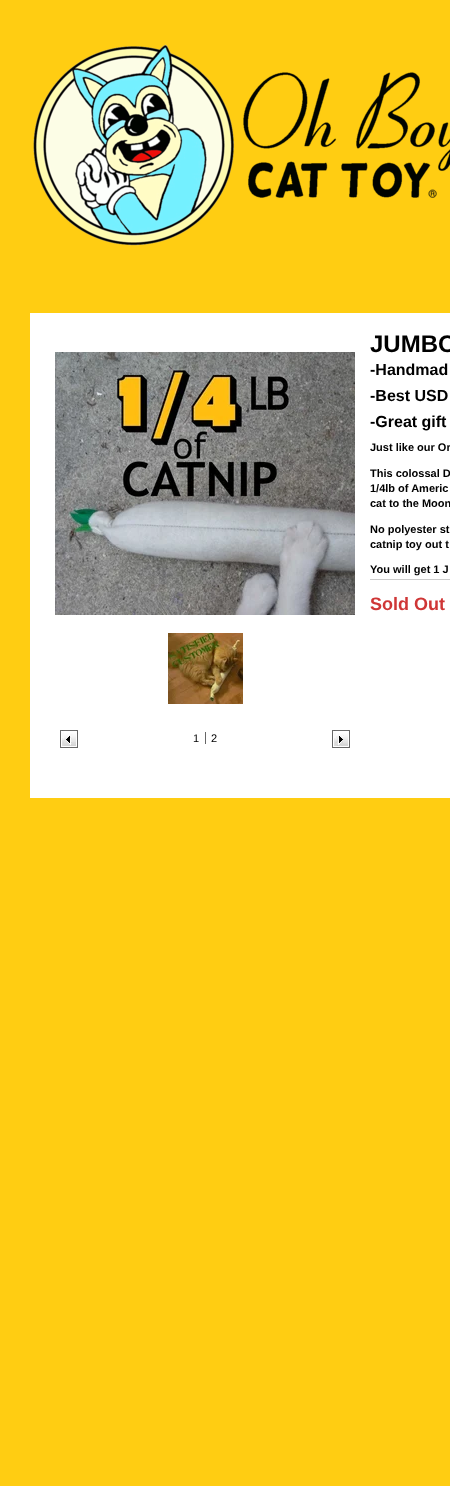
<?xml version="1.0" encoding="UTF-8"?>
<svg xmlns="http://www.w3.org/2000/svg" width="450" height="1486">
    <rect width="100%" height="100%" fill="#FFCD12"/>
    <image x="33" y="44" width="417" height="202" href="img_01.png"/>
    <rect x="30" y="313" width="420" height="485" fill="#FFFFFF"/>
    <rect x="370" y="579" width="80" height="1" fill="#CCCCCC"/>
    <text x="370" y="352" font-family="Liberation Sans" font-size="24" font-weight="700" fill="#000000">JUMBO</text>
    <text font-family="Liberation Sans" font-size="16" font-weight="700" fill="#000000">
        <tspan x="370" y="375">-Handmad</tspan>
        <tspan x="370" y="401">-Best USD</tspan>
        <tspan x="370" y="427">-Great gift</tspan>
    </text>
    <text x="370" y="451" font-family="Liberation Sans" font-size="11" font-weight="700" fill="#000000">Just like our Or</text>
    <text font-family="Liberation Sans" font-size="11" font-weight="700" fill="#000000">
        <tspan x="370" y="477">This colossal D</tspan>
        <tspan x="370" y="492">1/4lb of Americ</tspan>
        <tspan x="370" y="507">cat to the Moon</tspan>
    </text>
    <text font-family="Liberation Sans" font-size="11" font-weight="700" fill="#000000">
        <tspan x="370" y="533">No polyester st</tspan>
        <tspan x="370" y="548">catnip toy out t</tspan>
    </text>
    <text x="370" y="573" font-family="Liberation Sans" font-size="11" font-weight="700" fill="#000000">You will get 1 J</text>
    <text x="370" y="610" font-family="Liberation Sans" font-size="18" font-weight="700" fill="#CF3636">Sold Out</text>
    <image x="55" y="352" width="300" height="263" href="img_02.png"/>
    <image x="168" y="633" width="75" height="71" href="img_03.png"/>
    <image x="60" y="730" width="18" height="18" href="img_04.png"/>
    <text x="193" y="742" font-family="Liberation Sans" font-size="11" fill="#000000">1</text>
    <text x="211" y="742" font-family="Liberation Sans" font-size="11" fill="#000000">2</text>
    <rect x="205" y="732" width="1" height="12" fill="#666666"/>
    <image x="332" y="730" width="18" height="18" href="img_05.png"/>
</svg>
